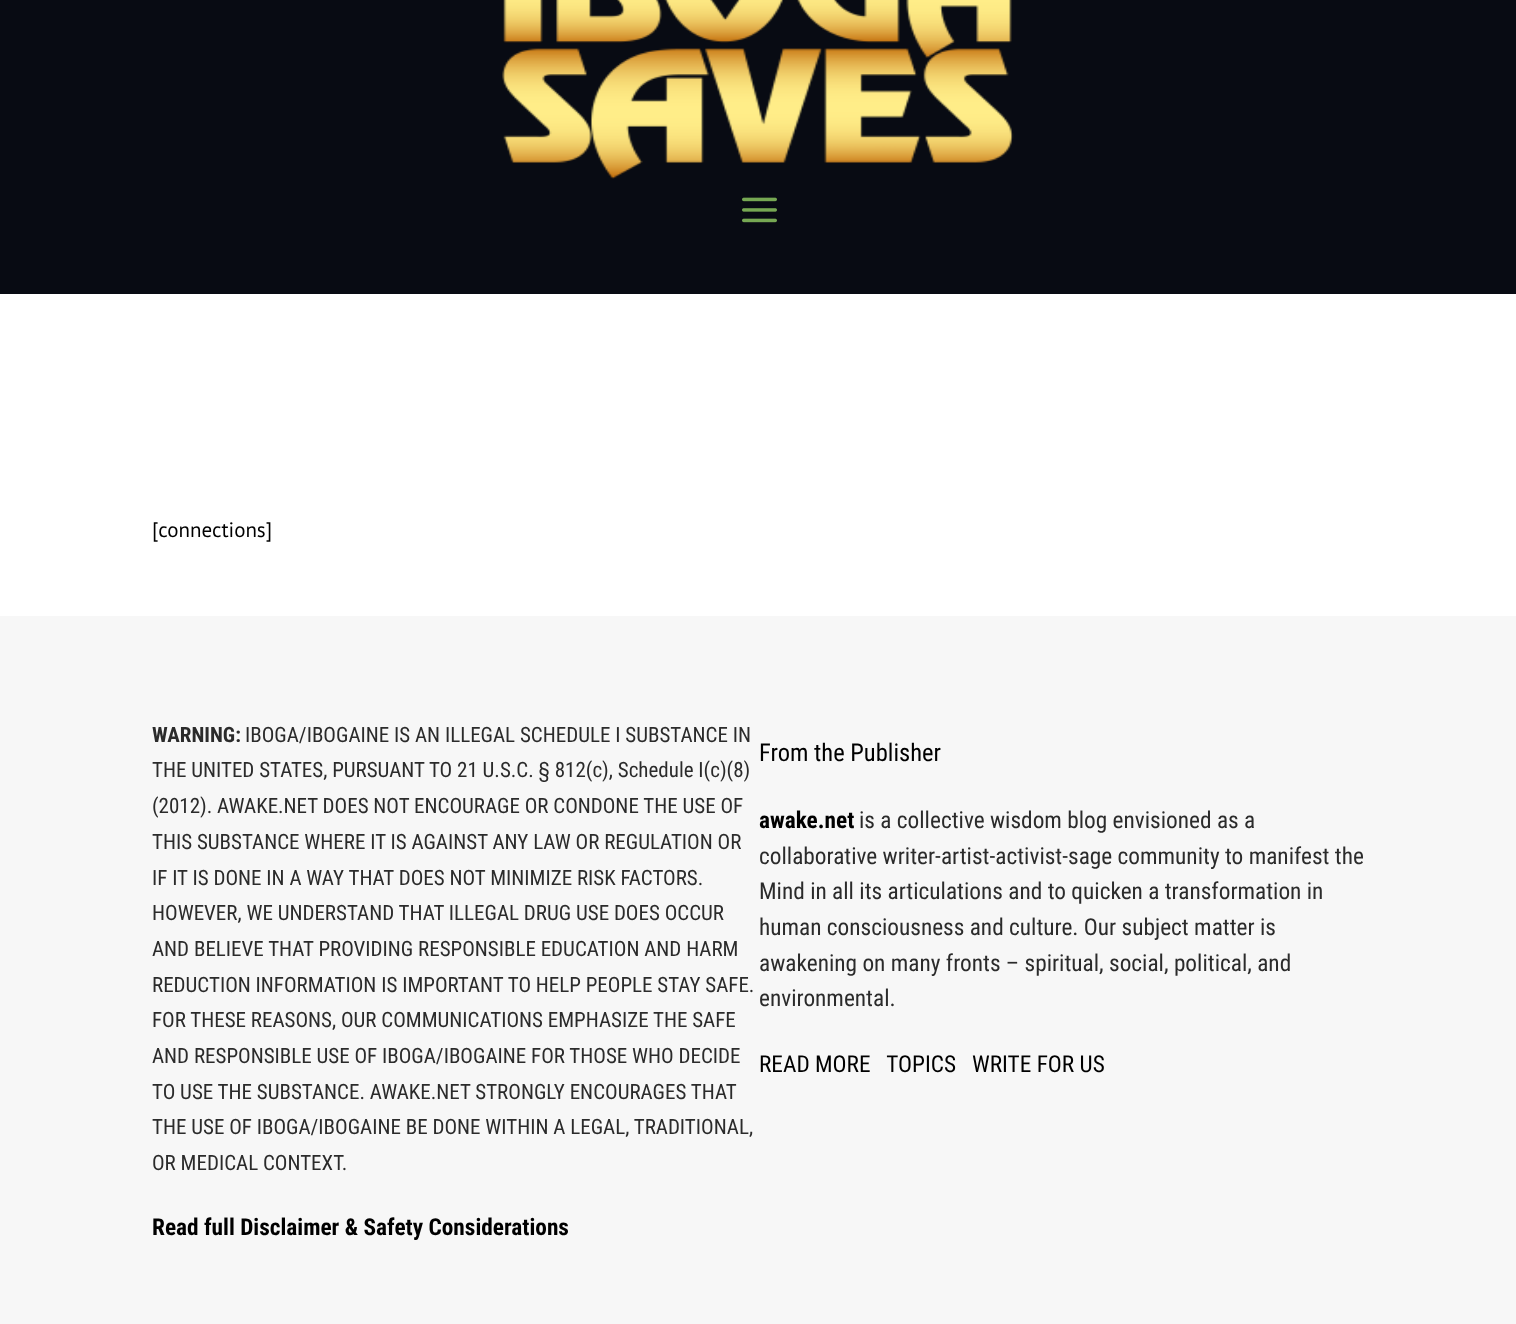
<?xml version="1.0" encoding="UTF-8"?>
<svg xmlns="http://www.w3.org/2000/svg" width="1516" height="1324">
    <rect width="100%" height="100%" fill="#FFFFFF"/>
    <rect x="0" y="0" width="1516" height="294" fill="#080B13"/>
    <image x="502" y="0" width="512" height="179" href="img_01.png"/>
    <image x="742" y="197" width="35" height="26" href="img_02.png"/>
    <text x="152" y="537" font-family="PT Sans" font-size="21" fill="#000000">[connections]</text>
    <rect x="0" y="616" width="1516" height="708" fill="#F7F7F7"/>
    <text x="152" y="742" font-family="Roboto Condensed" font-size="21" font-weight="700" fill="#2B2B2B">WARNING:</text>
    <text x="245" y="742" font-family="Roboto Condensed" font-size="21" fill="#2B2B2B">IBOGA/IBOGAINE IS AN ILLEGAL SCHEDULE I SUBSTANCE IN</text>
    <text font-family="Roboto Condensed" font-size="21" fill="#2B2B2B">
        <tspan x="152" y="777">THE UNITED STATES, PURSUANT TO 21 U.S.C. § 812(c), Schedule I(c)(8)</tspan>
        <tspan x="152" y="813">(2012). AWAKE.NET DOES NOT ENCOURAGE OR CONDONE THE USE OF</tspan>
        <tspan x="152" y="849">THIS SUBSTANCE WHERE IT IS AGAINST ANY LAW OR REGULATION OR</tspan>
        <tspan x="152" y="885">IF IT IS DONE IN A WAY THAT DOES NOT MINIMIZE RISK FACTORS.</tspan>
        <tspan x="152" y="920">HOWEVER, WE UNDERSTAND THAT ILLEGAL DRUG USE DOES OCCUR</tspan>
        <tspan x="152" y="956">AND BELIEVE THAT PROVIDING RESPONSIBLE EDUCATION AND HARM</tspan>
        <tspan x="152" y="992">REDUCTION INFORMATION IS IMPORTANT TO HELP PEOPLE STAY SAFE.</tspan>
        <tspan x="152" y="1027">FOR THESE REASONS, OUR COMMUNICATIONS EMPHASIZE THE SAFE</tspan>
        <tspan x="152" y="1063">AND RESPONSIBLE USE OF IBOGA/IBOGAINE FOR THOSE WHO DECIDE</tspan>
        <tspan x="152" y="1099">TO USE THE SUBSTANCE. AWAKE.NET STRONGLY ENCOURAGES THAT</tspan>
        <tspan x="152" y="1134">THE USE OF IBOGA/IBOGAINE BE DONE WITHIN A LEGAL, TRADITIONAL,</tspan>
        <tspan x="152" y="1170">OR MEDICAL CONTEXT.</tspan>
    </text>
    <text x="152" y="1235" font-family="Roboto Condensed" font-size="23.3" font-weight="700" fill="#000000">Read full Disclaimer &amp; Safety Considerations</text>
    <text x="759" y="761" font-family="Roboto Condensed" font-size="24.5" fill="#000000">From the Publisher</text>
    <text x="759" y="828" font-family="Roboto Condensed" font-size="23.3" font-weight="700" fill="#000000">awake.net</text>
    <text x="859" y="828" font-family="Roboto Condensed" font-size="23.3" fill="#2B2B2B">is a collective wisdom blog envisioned as a</text>
    <text font-family="Roboto Condensed" font-size="23.3" fill="#2B2B2B">
        <tspan x="759" y="864">collaborative writer-artist-activist-sage community to manifest the</tspan>
        <tspan x="759" y="899">Mind in all its articulations and to quicken a transformation in</tspan>
        <tspan x="759" y="935">human consciousness and culture. Our subject matter is</tspan>
        <tspan x="759" y="971">awakening on many fronts – spiritual, social, political, and</tspan>
        <tspan x="759" y="1006">environmental.</tspan>
    </text>
    <text x="759" y="1072" font-family="Roboto Condensed" font-size="23.3" fill="#000000" xml:space="preserve">READ MORE   TOPICS</text>
    <text x="972" y="1072" font-family="Roboto Condensed" font-size="23.3" fill="#000000">WRITE FOR US</text>
</svg>
